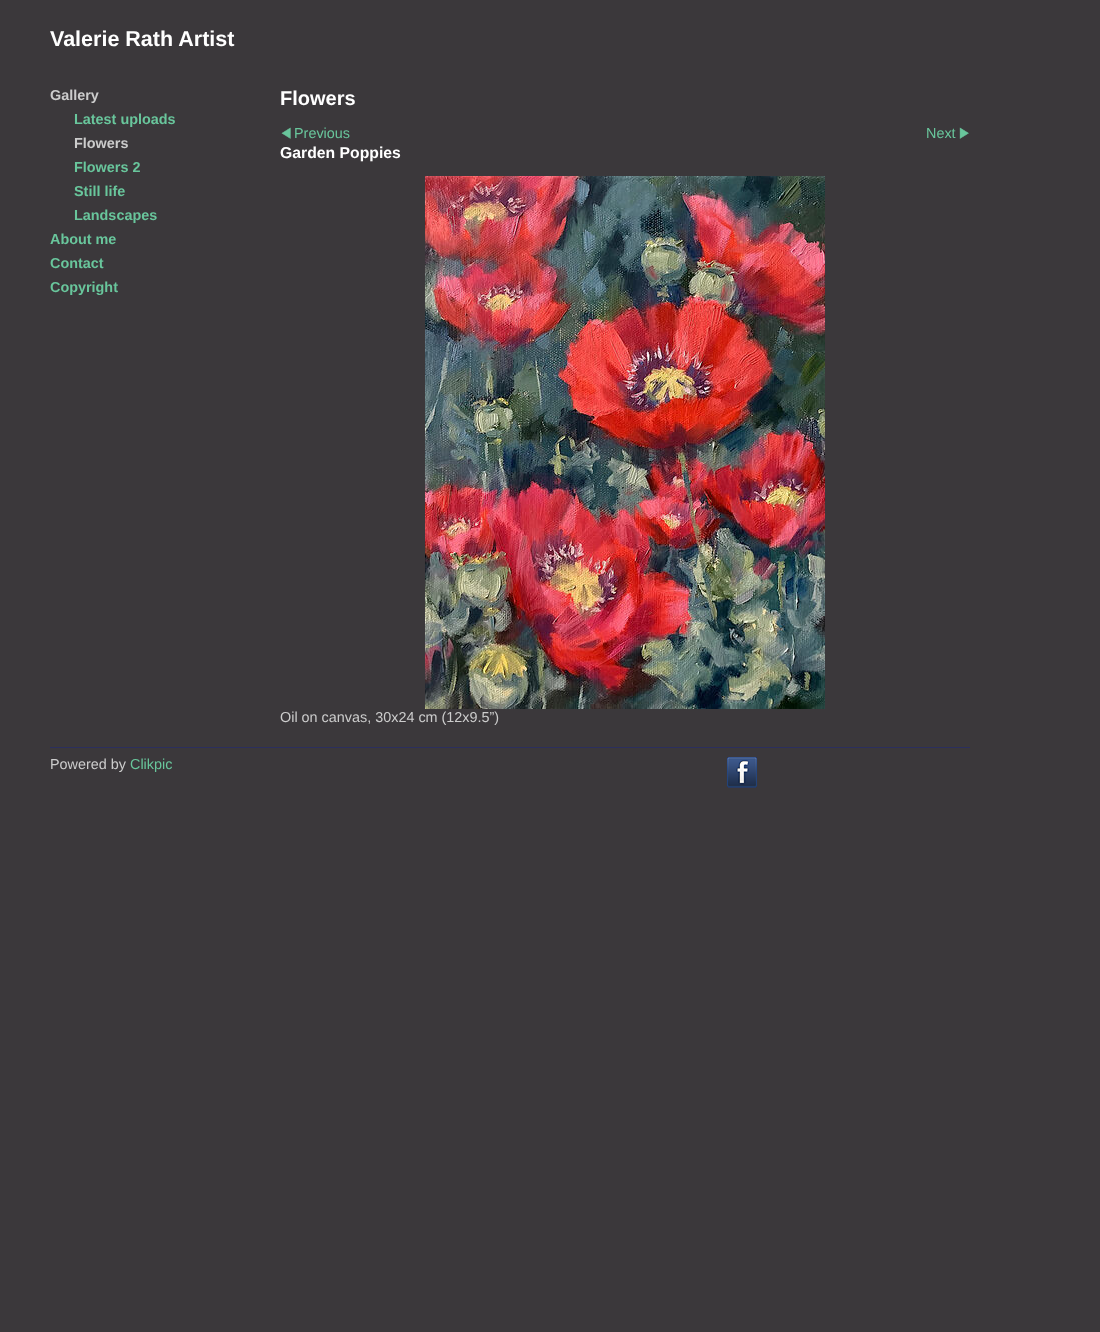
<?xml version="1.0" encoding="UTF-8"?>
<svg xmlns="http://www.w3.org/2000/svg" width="1100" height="1332">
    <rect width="100%" height="100%" fill="#3B383B"/>
    <text x="50" y="46" font-family="Liberation Sans" font-size="21.5" font-weight="700" fill="#FFFFFF">Valerie Rath Artist</text>
    <text x="50" y="100" font-family="Liberation Sans" font-size="14.4" font-weight="700" fill="#CCCCCC">Gallery</text>
    <text font-family="Liberation Sans" font-size="14.4" font-weight="700" fill="#69C69C">
        <tspan x="50" y="244">About me</tspan>
        <tspan x="50" y="268">Contact</tspan>
        <tspan x="50" y="292">Copyright</tspan>
    </text>
    <text x="280" y="105" font-family="Liberation Sans" font-size="20" font-weight="700" fill="#FFFFFF">Flowers</text>
    <image x="281" y="127" width="10" height="12" href="img_01.png"/>
    <text x="294" y="138" font-family="Liberation Sans" font-size="14.4" fill="#69C69C">Previous</text>
    <text x="926" y="138" font-family="Liberation Sans" font-size="14.4" fill="#69C69C">Next</text>
    <image x="959" y="127" width="10" height="12" href="img_02.png"/>
    <text x="280" y="158" font-family="Liberation Sans" font-size="15.75" font-weight="700" fill="#FFFFFF">Garden Poppies</text>
    <image x="425" y="176" width="400" height="533" href="img_03.png"/>
    <text x="280" y="722" font-family="Liberation Sans" font-size="14.4" fill="#CCCCCC">Oil on canvas, 30x24 cm (12x9.5”)</text>
    <text x="74" y="124" font-family="Liberation Sans" font-size="14.4" font-weight="700" fill="#69C69C">Latest uploads</text>
    <text x="74" y="148" font-family="Liberation Sans" font-size="14.4" font-weight="700" fill="#CCCCCC">Flowers</text>
    <text font-family="Liberation Sans" font-size="14.4" font-weight="700" fill="#69C69C">
        <tspan x="74" y="172">Flowers 2</tspan>
        <tspan x="74" y="196">Still life</tspan>
        <tspan x="74" y="220">Landscapes</tspan>
    </text>
    <rect x="50" y="747" width="920" height="1" fill="#2B2F5E"/>
    <text x="50" y="769" font-family="Liberation Sans" font-size="14.4" fill="#CCCCCC">Powered by</text>
    <text x="130" y="769" font-family="Liberation Sans" font-size="14.4" fill="#69C69C">Clikpic</text>
    <image x="727" y="757" width="30" height="31" href="img_04.png"/>
</svg>
